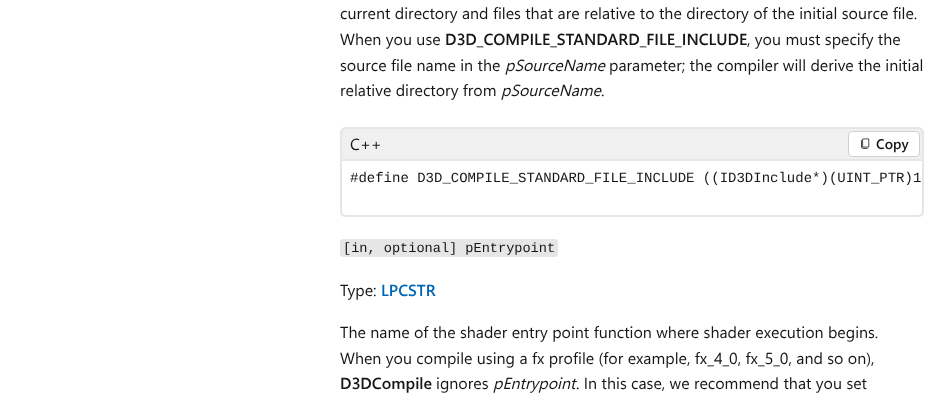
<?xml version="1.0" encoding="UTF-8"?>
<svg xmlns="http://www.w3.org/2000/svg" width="948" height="412">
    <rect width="100%" height="100%" fill="#FFFFFF"/>
    <text font-family="Segoe UI" font-size="16" fill="#161616">
        <tspan x="340" y="19">current directory and files that are relative to the directory of the initial source file.</tspan>
        <tspan x="340" y="45">When you use</tspan>
    </text>
    <text x="445" y="45" font-family="Segoe UI" font-size="16" font-weight="600" fill="#161616">D3D_COMPILE_STANDARD_FILE_INCLUDE</text>
    <text x="747" y="45" font-family="Segoe UI" font-size="16" fill="#161616">, you must specify the</text>
    <text x="340" y="71" font-family="Segoe UI" font-size="16" fill="#161616">source file name in the</text>
    <text x="505" y="71" font-family="Segoe UI" font-size="16" font-style="italic" fill="#161616">pSourceName</text>
    <text x="609" y="71" font-family="Segoe UI" font-size="16" fill="#161616">parameter; the compiler will derive the initial</text>
    <text x="340" y="96" font-family="Segoe UI" font-size="16" fill="#161616">relative directory from</text>
    <text x="501" y="96" font-family="Segoe UI" font-size="16" font-style="italic" fill="#161616">pSourceName</text>
    <text x="601" y="96" font-family="Segoe UI" font-size="16" fill="#161616">.</text>
    <path d="M 346 127 H 918 C 921.5 127 924 129.5 924 133 V 159 H 340 V 133 C 340 129.5 342.5 127 346 127 Z" fill="#F0F0F0"/>
    <path d="M 346 127 H 918 C 921 127 924 130 924 133 V 159 H 340 V 133 C 340 130 343 127 346 127 Z M 346 129 H 918 C 920 129 922 131 922 133 V 159 H 342 V 133 C 342 131 344 129 346 129 Z" fill="#E6E6E6" fill-rule="evenodd"/>
    <text x="350" y="150" font-family="Segoe UI" font-size="16" fill="#161616">C++</text>
    <rect x="848.5" y="131.5" width="71" height="25" rx="3.5" fill="#FFFFFF" stroke="#D1D1D1"/>
    <image x="861" y="138" width="9" height="11" href="img_01.png"/>
    <text x="876" y="149" font-family="Segoe UI" font-size="14" font-weight="600" fill="#161616">Copy</text>
    <path d="M 341 160 H 923 V 211 C 923 214 921 216 918 216 H 346 C 343 216 341 214 341 211 Z" fill="none" stroke="#E6E6E6" stroke-width="2"/>
    <text x="350" y="182" font-family="Liberation Mono" font-size="14" fill="#161616">#define D3D_COMPILE_STANDARD_FILE_INCLUDE ((ID3DInclude*)(UINT_PTR)1</text>
    <rect x="340" y="239" width="218" height="18" rx="3" fill="#E6E6E6"/>
    <text x="343" y="252" font-family="Liberation Mono" font-size="13.6" fill="#161616">[in, optional] pEntrypoint</text>
    <text x="340" y="296" font-family="Segoe UI" font-size="16" fill="#161616">Type:</text>
    <text x="381" y="296" font-family="Segoe UI" font-size="16" font-weight="600" fill="#0065B3">LPCSTR</text>
    <text font-family="Segoe UI" font-size="16" fill="#161616">
        <tspan x="340" y="338">The name of the shader entry point function where shader execution begins.</tspan>
        <tspan x="340" y="364">When you compile using a fx profile (for example, fx_4_0, fx_5_0, and so on),</tspan>
    </text>
    <text x="340" y="389" font-family="Segoe UI" font-size="16" font-weight="600" fill="#161616">D3DCompile</text>
    <text x="436" y="389" font-family="Segoe UI" font-size="16" fill="#161616">ignores</text>
    <text x="493" y="389" font-family="Segoe UI" font-size="16" font-style="italic" fill="#161616">pEntrypoint</text>
    <text x="576" y="389" font-family="Segoe UI" font-size="16" fill="#161616">. In this case, we recommend that you set</text>
</svg>
